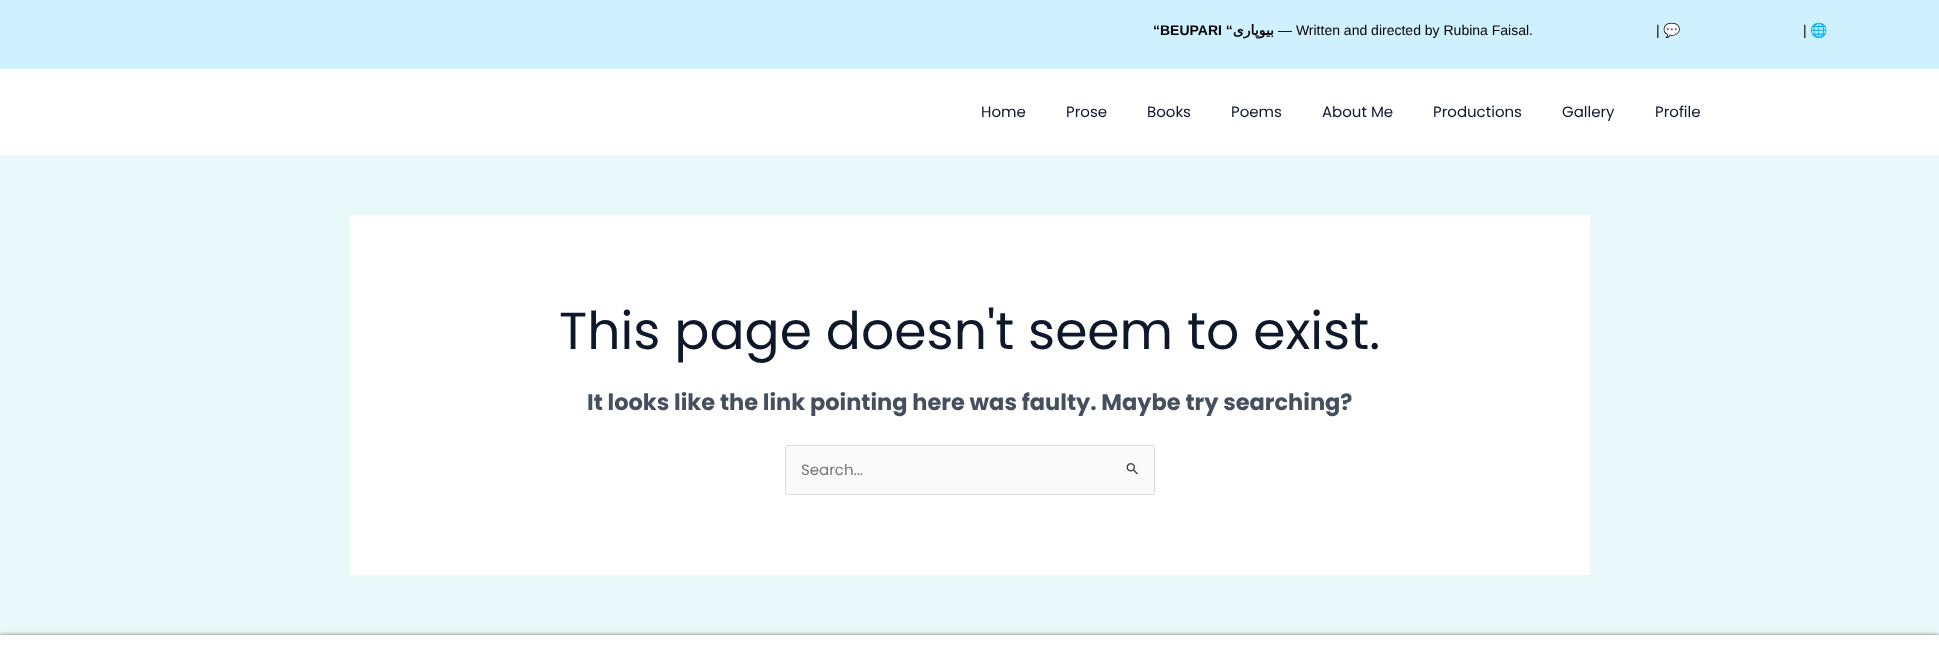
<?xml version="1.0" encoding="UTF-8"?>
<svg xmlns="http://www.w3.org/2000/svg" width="1939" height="645">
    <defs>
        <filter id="blur1" x="-50%" y="-200%" width="200%" height="500%"><feGaussianBlur stdDeviation="2"/></filter>
    </defs>
    <rect width="100%" height="100%" fill="#E9F8F9"/>
    <rect x="0" y="0" width="1939" height="69" fill="#CEF0FF"/>
    <text x="1153" y="35" font-family="Liberation Sans" font-size="14" font-weight="700" fill="#000000">“BEUPARI “</text>
    <text x="1274" y="35" font-family="DejaVu Sans" font-size="14" font-weight="700" direction="rtl" fill="#000000">بیوپاری</text>
    <text x="1278" y="35" font-family="Liberation Sans" font-size="14" fill="#000000">— Written and directed by Rubina Faisal.</text>
    <text x="1656" y="35" font-family="Liberation Sans" font-size="14" fill="#000000">|</text>
    <text x="1663" y="35" font-family="Noto Color Emoji" font-size="14" fill="#000000">💬</text>
    <text x="1803" y="35" font-family="Liberation Sans" font-size="14" fill="#000000">|</text>
    <text x="1810" y="35" font-family="Noto Color Emoji" font-size="14" fill="#000000">🌐</text>
    <rect x="0" y="69" width="1939" height="86" fill="#FFFFFF"/>
    <text x="981" y="117" font-family="Poppins" font-size="15" fill="#0F172A">Home</text>
    <text x="1066" y="117" font-family="Poppins" font-size="15" fill="#0F172A">Prose</text>
    <text x="1147" y="117" font-family="Poppins" font-size="15" fill="#0F172A">Books</text>
    <text x="1231" y="117" font-family="Poppins" font-size="15" fill="#0F172A">Poems</text>
    <text x="1322" y="117" font-family="Poppins" font-size="15" fill="#0F172A">About Me</text>
    <text x="1433" y="117" font-family="Poppins" font-size="15" fill="#0F172A">Productions</text>
    <text x="1562" y="117" font-family="Poppins" font-size="15" fill="#0F172A">Gallery</text>
    <text x="1655" y="117" font-family="Poppins" font-size="15" fill="#0F172A">Profile</text>
    <rect x="350" y="215" width="1240" height="360" fill="#FFFFFF"/>
    <text x="559" y="349" font-family="Poppins" font-size="52" fill="#0F172A">This page doesn't seem to exist.</text>
    <text x="587" y="410" font-family="Poppins" font-size="22.5" font-weight="700" fill="#454F5E">It looks like the link pointing here was faulty. Maybe try searching?</text>
    <rect x="785.5" y="445.5" width="369" height="49" rx="1.5" fill="#FAFAFA" stroke="#DDDDDD"/>
    <text x="801" y="475" font-family="Poppins" font-size="15" fill="#757575">Search...</text>
    <image x="1126" y="463" width="12" height="12" href="img_01.png"/>
    <rect x="0" y="635" width="1939" height="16" fill="#000000" fill-opacity="0.5" filter="url(#blur1)"/>
    <rect x="0" y="635" width="1939" height="10" fill="#FFFFFF"/>
</svg>
